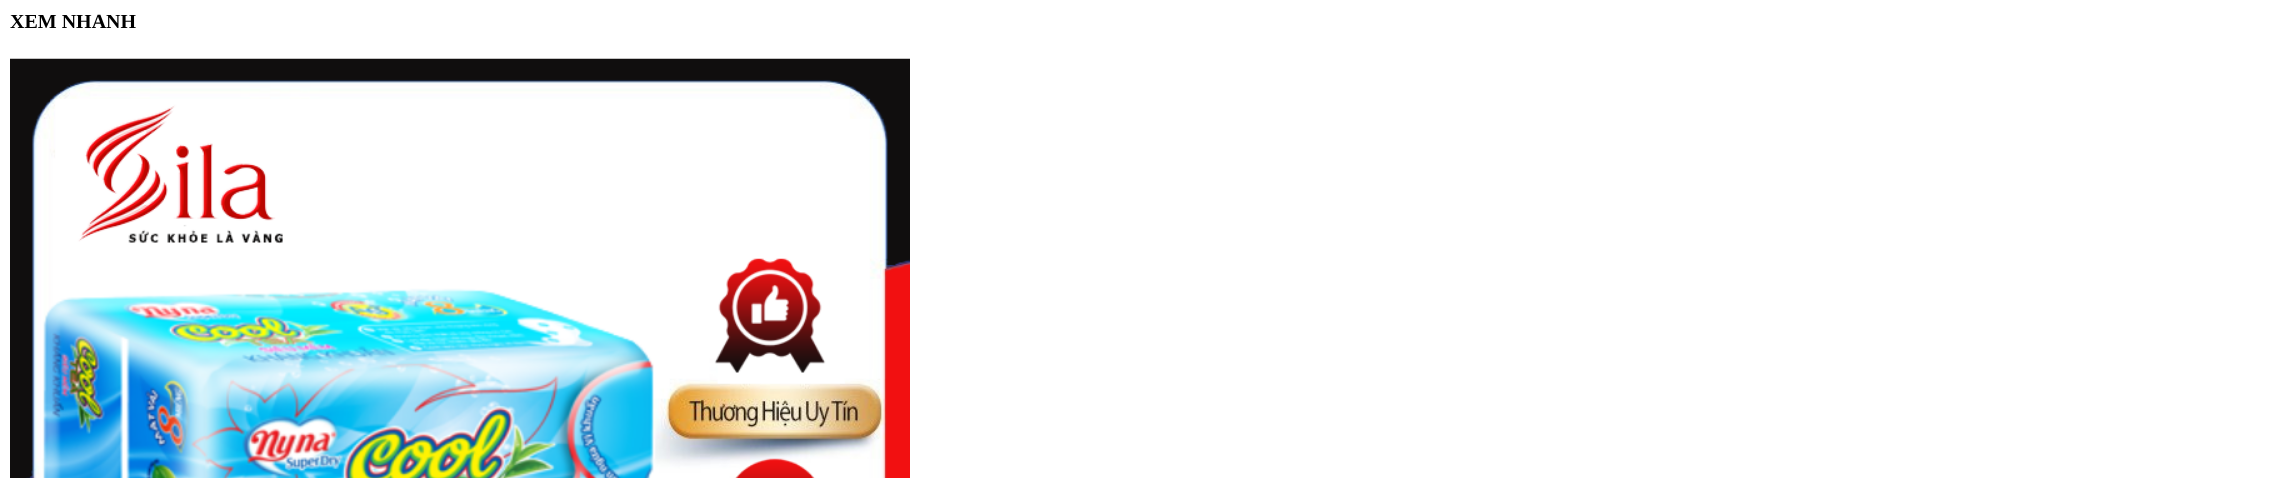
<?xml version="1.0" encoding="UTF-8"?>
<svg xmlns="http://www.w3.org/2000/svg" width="2277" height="478">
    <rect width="100%" height="100%" fill="#FFFFFF"/>
    <text x="10" y="28" font-family="Liberation Serif" font-size="20" font-weight="700" fill="#000000">XEM NHANH</text>
    <image x="10" y="58" width="900" height="420" href="img_01.png"/>
</svg>
